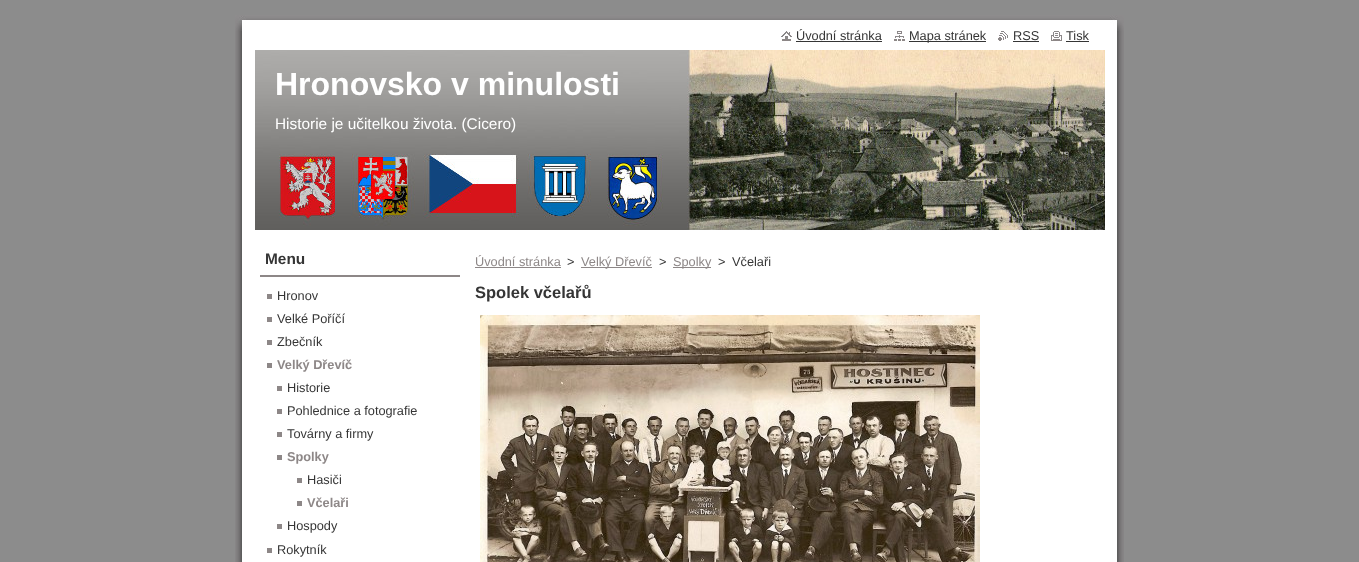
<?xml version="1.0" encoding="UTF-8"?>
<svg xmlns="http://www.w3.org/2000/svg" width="1359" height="562">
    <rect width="100%" height="100%" fill="#8C8C8C"/>
    <image x="235" y="31" width="889" height="524" href="img_01.png"/>
    <image x="235" y="15" width="889" height="16" href="img_02.png"/>
    <image x="235" y="555" width="889" height="7" href="img_03.png"/>
    <image x="781" y="31" width="11" height="10" href="img_04.png"/>
    <text x="796" y="40" font-family="Liberation Sans" font-size="12.75" fill="#353535">Úvodní stránka</text>
    <rect x="796" y="41" width="86" height="1" fill="#353535"/>
    <image x="894" y="31" width="11" height="10" href="img_05.png"/>
    <rect x="909" y="41" width="77" height="1" fill="#353535"/>
    <text x="909" y="40" font-family="Liberation Sans" font-size="12.75" fill="#353535">Mapa stránek</text>
    <image x="998" y="31" width="10" height="10" href="img_06.png"/>
    <text x="1013" y="40" font-family="Liberation Sans" font-size="12.75" fill="#353535">RSS</text>
    <rect x="1013" y="41" width="26" height="1" fill="#353535"/>
    <image x="1051" y="31" width="11" height="10" href="img_07.png"/>
    <text x="1066" y="40" font-family="Liberation Sans" font-size="12.75" fill="#353535">Tisk</text>
    <rect x="1066" y="41" width="23" height="1" fill="#353535"/>
    <image x="255" y="50" width="850" height="180" href="img_08.png"/>
    <text x="275" y="95" font-family="Liberation Sans" font-size="32" font-weight="700" fill="#FFFFFF">Hronovsko v minulosti</text>
    <text x="275" y="129" font-family="Liberation Sans" font-size="15.4" fill="#FFFFFF">Historie je učitelkou života. (Cicero)</text>
    <rect x="260" y="275" width="200" height="2" fill="#8D8787"/>
    <text x="265" y="264" font-family="Liberation Sans" font-size="15.4" font-weight="700" fill="#353535">Menu</text>
    <text x="277" y="300" font-family="Liberation Sans" font-size="12.75" fill="#353535">Hronov</text>
    <rect x="267" y="294" width="5" height="5" fill="#8D8787"/>
    <text x="277" y="323" font-family="Liberation Sans" font-size="12.75" fill="#353535">Velké Poříčí</text>
    <rect x="267" y="317" width="5" height="5" fill="#8D8787"/>
    <text x="277" y="346" font-family="Liberation Sans" font-size="12.75" fill="#353535">Zbečník</text>
    <rect x="267" y="340" width="5" height="5" fill="#8D8787"/>
    <text x="277" y="369" font-family="Liberation Sans" font-size="12.75" font-weight="700" fill="#8D8787">Velký Dřevíč</text>
    <rect x="267" y="363" width="5" height="5" fill="#8D8787"/>
    <text x="287" y="392" font-family="Liberation Sans" font-size="12.75" fill="#353535">Historie</text>
    <rect x="277" y="386" width="5" height="5" fill="#8D8787"/>
    <text x="287" y="415" font-family="Liberation Sans" font-size="12.75" fill="#353535">Pohlednice a fotografie</text>
    <rect x="277" y="409" width="5" height="5" fill="#8D8787"/>
    <text x="287" y="438" font-family="Liberation Sans" font-size="12.75" fill="#353535">Továrny a firmy</text>
    <rect x="277" y="432" width="5" height="5" fill="#8D8787"/>
    <text x="287" y="461" font-family="Liberation Sans" font-size="12.75" font-weight="700" fill="#8D8787">Spolky</text>
    <rect x="277" y="455" width="5" height="5" fill="#8D8787"/>
    <text x="307" y="484" font-family="Liberation Sans" font-size="12.75" fill="#353535">Hasiči</text>
    <rect x="297" y="478" width="5" height="5" fill="#8D8787"/>
    <text x="307" y="507" font-family="Liberation Sans" font-size="12.75" font-weight="700" fill="#8D8787">Včelaři</text>
    <rect x="297" y="501" width="5" height="5" fill="#8D8787"/>
    <text x="287" y="530" font-family="Liberation Sans" font-size="12.75" fill="#353535">Hospody</text>
    <rect x="277" y="524" width="5" height="5" fill="#8D8787"/>
    <text x="277" y="554" font-family="Liberation Sans" font-size="12.75" fill="#353535">Rokytník</text>
    <rect x="267" y="548" width="5" height="5" fill="#8D8787"/>
    <text x="475" y="266" font-family="Liberation Sans" font-size="12.75" fill="#8D8787">Úvodní stránka</text>
    <rect x="475" y="267" width="86" height="1" fill="#8D8787"/>
    <text x="567" y="266" font-family="Liberation Sans" font-size="12.75" fill="#353535">&gt;</text>
    <rect x="581" y="267" width="71" height="1" fill="#8D8787"/>
    <text x="581" y="266" font-family="Liberation Sans" font-size="12.75" fill="#8D8787">Velký Dřevíč</text>
    <text x="659" y="266" font-family="Liberation Sans" font-size="12.75" fill="#353535">&gt;</text>
    <rect x="673" y="267" width="38" height="1" fill="#8D8787"/>
    <text x="673" y="266" font-family="Liberation Sans" font-size="12.75" fill="#8D8787">Spolky</text>
    <text x="718" y="266" font-family="Liberation Sans" font-size="12.75" fill="#353535">&gt;</text>
    <text x="732" y="266" font-family="Liberation Sans" font-size="12.75" fill="#353535">Včelaři</text>
    <text x="475" y="298" font-family="Liberation Sans" font-size="16.5" font-weight="700" fill="#353535">Spolek včelařů</text>
    <image x="480" y="315" width="500" height="247" href="img_09.png"/>
</svg>
